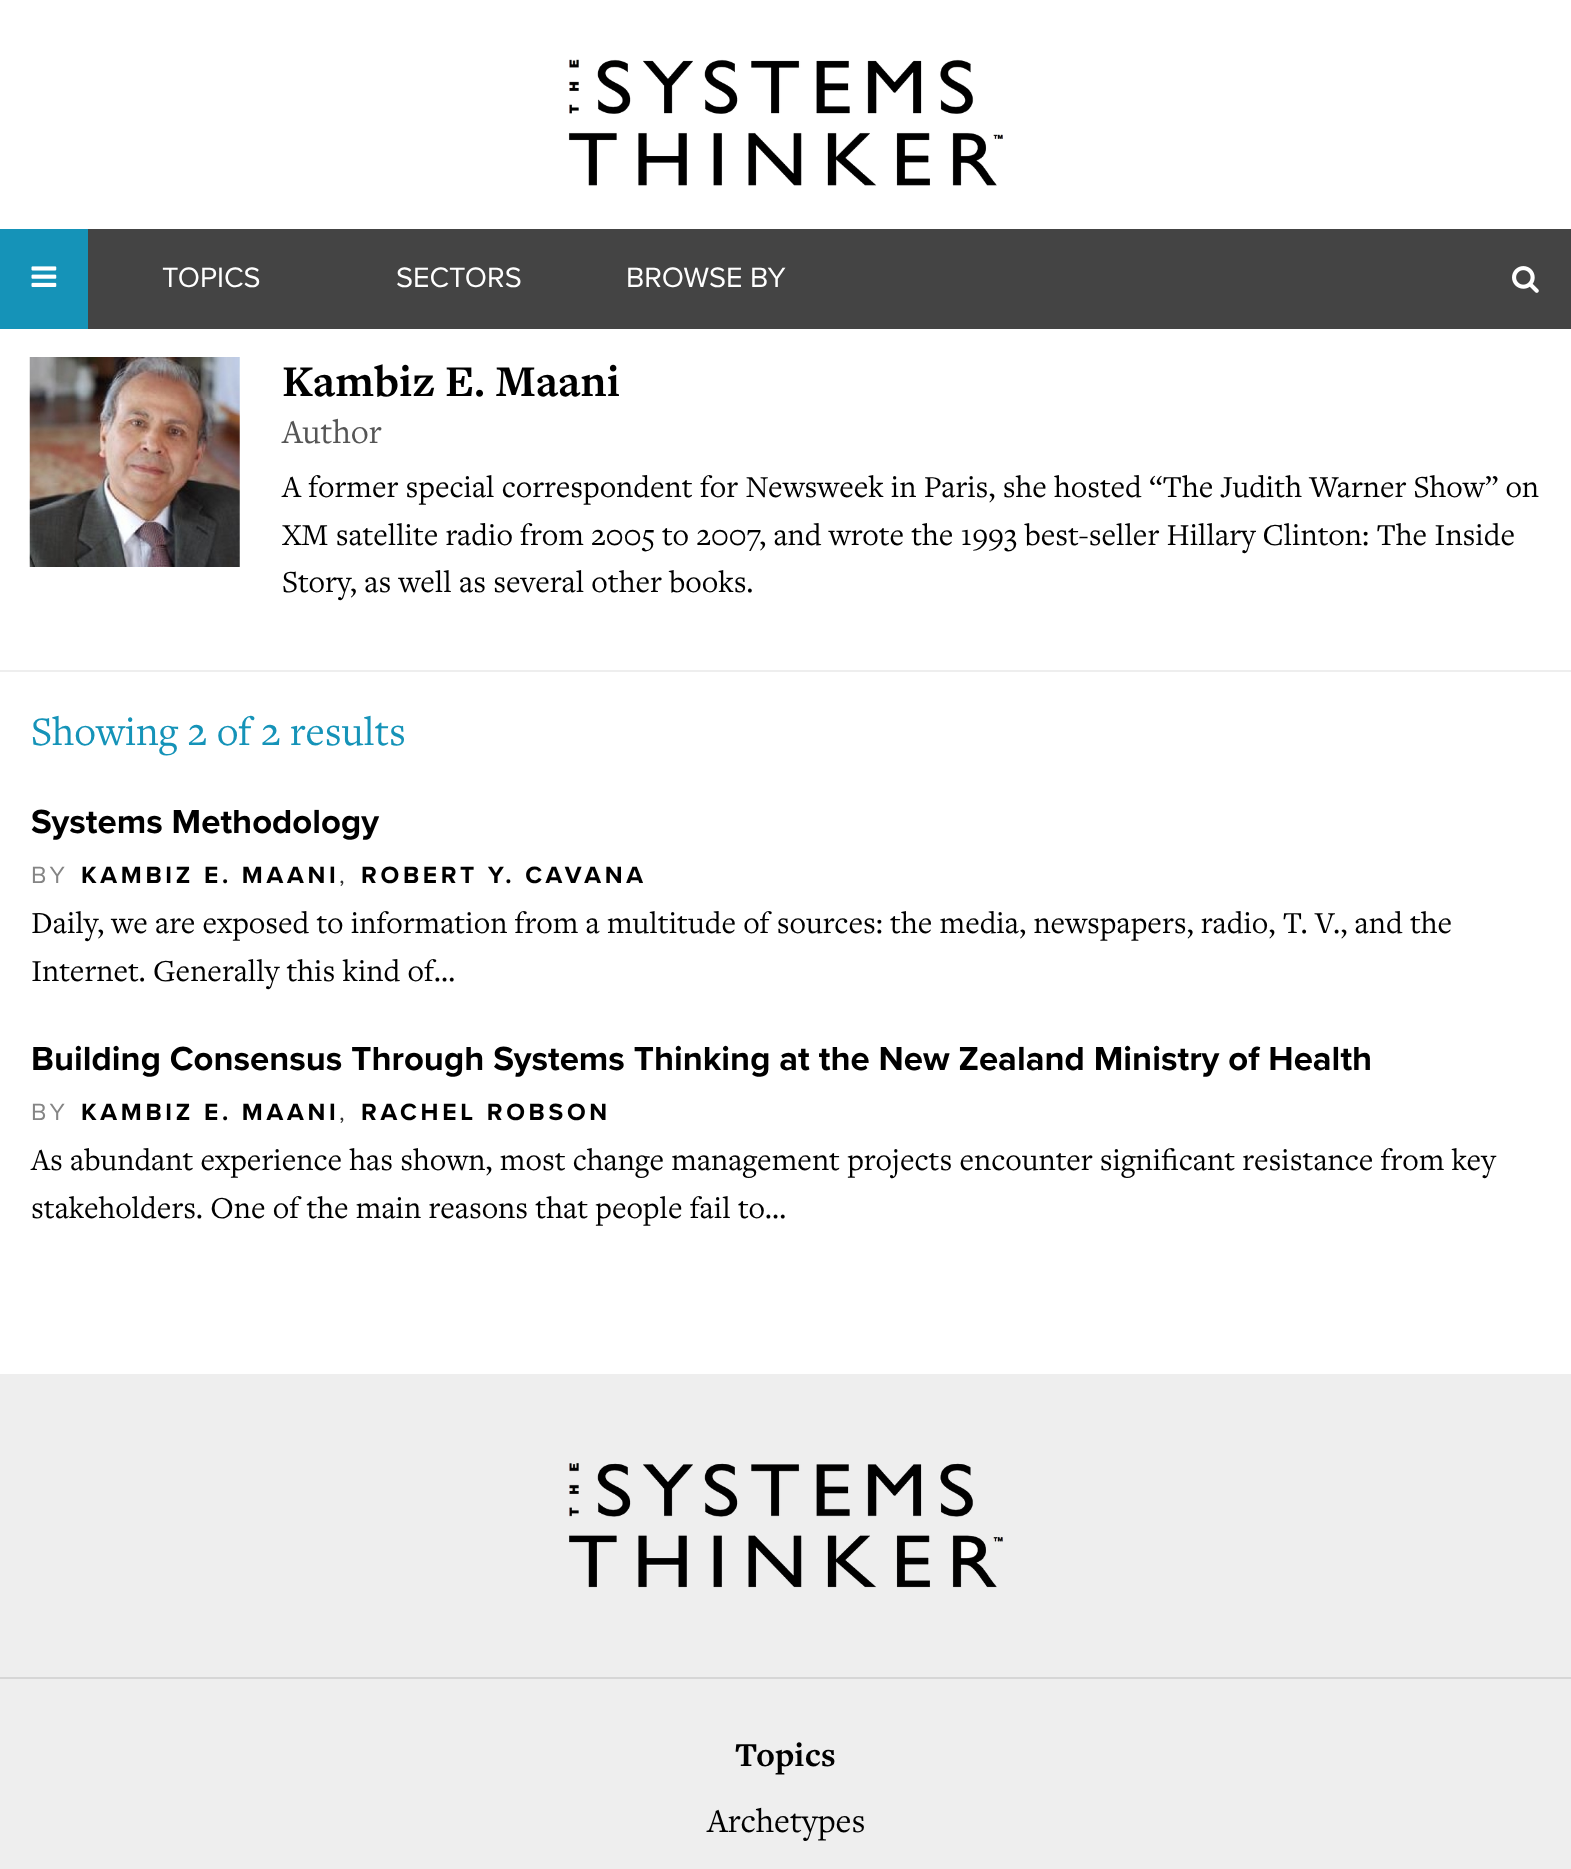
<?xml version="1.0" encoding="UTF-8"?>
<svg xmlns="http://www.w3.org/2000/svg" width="1571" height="1869">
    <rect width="100%" height="100%" fill="#FFFFFF"/>
    <image x="568" y="59" width="435" height="127" href="img_01.png"/>
    <rect x="88" y="229" width="1483" height="100" fill="#444444"/>
    <rect x="0" y="229" width="88" height="100" fill="#1593B8"/>
    <image x="31" y="266" width="26" height="21" href="img_02.png"/>
    <text x="162" y="287" font-family="Proxima Nova" font-size="29" fill="#FFFFFF">TOPICS</text>
    <text x="396" y="287" font-family="Proxima Nova" font-size="29" fill="#FFFFFF">SECTORS</text>
    <text x="626" y="287" font-family="Proxima Nova" font-size="29" fill="#FFFFFF">BROWSE BY</text>
    <image x="1512" y="266" width="27" height="27" href="img_03.png"/>
    <rect x="0" y="670" width="1571" height="2" fill="#EEEEEE"/>
    <image x="29" y="357" width="211" height="210" href="img_04.png"/>
    <text x="282" y="396" font-family="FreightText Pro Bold" font-size="45.5" font-weight="700" fill="#000000">Kambiz E. Maani</text>
    <text x="282" y="443" font-family="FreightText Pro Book" font-size="34.65" fill="#555555">Author</text>
    <text font-family="FreightText Pro Book" font-size="31.75" fill="#000000">
        <tspan x="282" y="497">A former special correspondent for Newsweek in Paris, she hosted “The Judith Warner Show” on</tspan>
        <tspan x="282" y="545">XM satellite radio from 2005 to 2007, and wrote the 1993 best-seller Hillary Clinton: The Inside</tspan>
        <tspan x="282" y="592">Story, as well as several other books.</tspan>
    </text>
    <text x="31" y="745" font-family="FreightText Pro Book" font-size="41.9" fill="#1593B8">Showing 2 of 2 results</text>
    <text x="31" y="833" font-family="Proxima Nova" font-size="34.65" font-weight="700" fill="#000000">Systems Methodology</text>
    <text x="31" y="883" font-family="Proxima Nova" font-size="24.5" letter-spacing="3.7" fill="#858585">BY</text>
    <text x="81" y="883" font-family="Proxima Nova" font-size="24.5" font-weight="700" letter-spacing="3.7" fill="#000000">KAMBIZ E. MAANI</text>
    <text x="339" y="883" font-family="Proxima Nova" font-size="24.5" letter-spacing="3.7" fill="#333333">,</text>
    <text x="361" y="883" font-family="Proxima Nova" font-size="24.5" font-weight="700" letter-spacing="3.7" fill="#000000">ROBERT Y. CAVANA</text>
    <text font-family="FreightText Pro Book" font-size="31.75" fill="#000000">
        <tspan x="31" y="933">Daily, we are exposed to information from a multitude of sources: the media, newspapers, radio, T. V., and the</tspan>
        <tspan x="31" y="981">Internet. Generally this kind of…</tspan>
    </text>
    <text x="31" y="1070" font-family="Proxima Nova" font-size="34.65" font-weight="700" fill="#000000">Building Consensus Through Systems Thinking at the New Zealand Ministry of Health</text>
    <text x="31" y="1120" font-family="Proxima Nova" font-size="24.5" letter-spacing="3.7" fill="#858585">BY</text>
    <text x="81" y="1120" font-family="Proxima Nova" font-size="24.5" font-weight="700" letter-spacing="3.7" fill="#000000">KAMBIZ E. MAANI</text>
    <text x="339" y="1120" font-family="Proxima Nova" font-size="24.5" letter-spacing="3.7" fill="#333333">,</text>
    <text x="361" y="1120" font-family="Proxima Nova" font-size="24.5" font-weight="700" letter-spacing="3.7" fill="#000000">RACHEL ROBSON</text>
    <text font-family="FreightText Pro Book" font-size="31.75" fill="#000000">
        <tspan x="31" y="1170">As abundant experience has shown, most change management projects encounter significant resistance from key</tspan>
        <tspan x="31" y="1218">stakeholders. One of the main reasons that people fail to…</tspan>
    </text>
    <rect x="0" y="1374" width="1571" height="495" fill="#EEEEEE"/>
    <rect x="0" y="1677" width="1571" height="2" fill="#D6D6D6"/>
    <image x="569" y="1463" width="434" height="125" href="img_05.png"/>
    <text x="735" y="1766" font-family="FreightText Pro Bold" font-size="34.65" font-weight="700" fill="#000000">Topics</text>
    <text x="707" y="1832" font-family="FreightText Pro Book" font-size="34.65" fill="#000000">Archetypes</text>
</svg>
